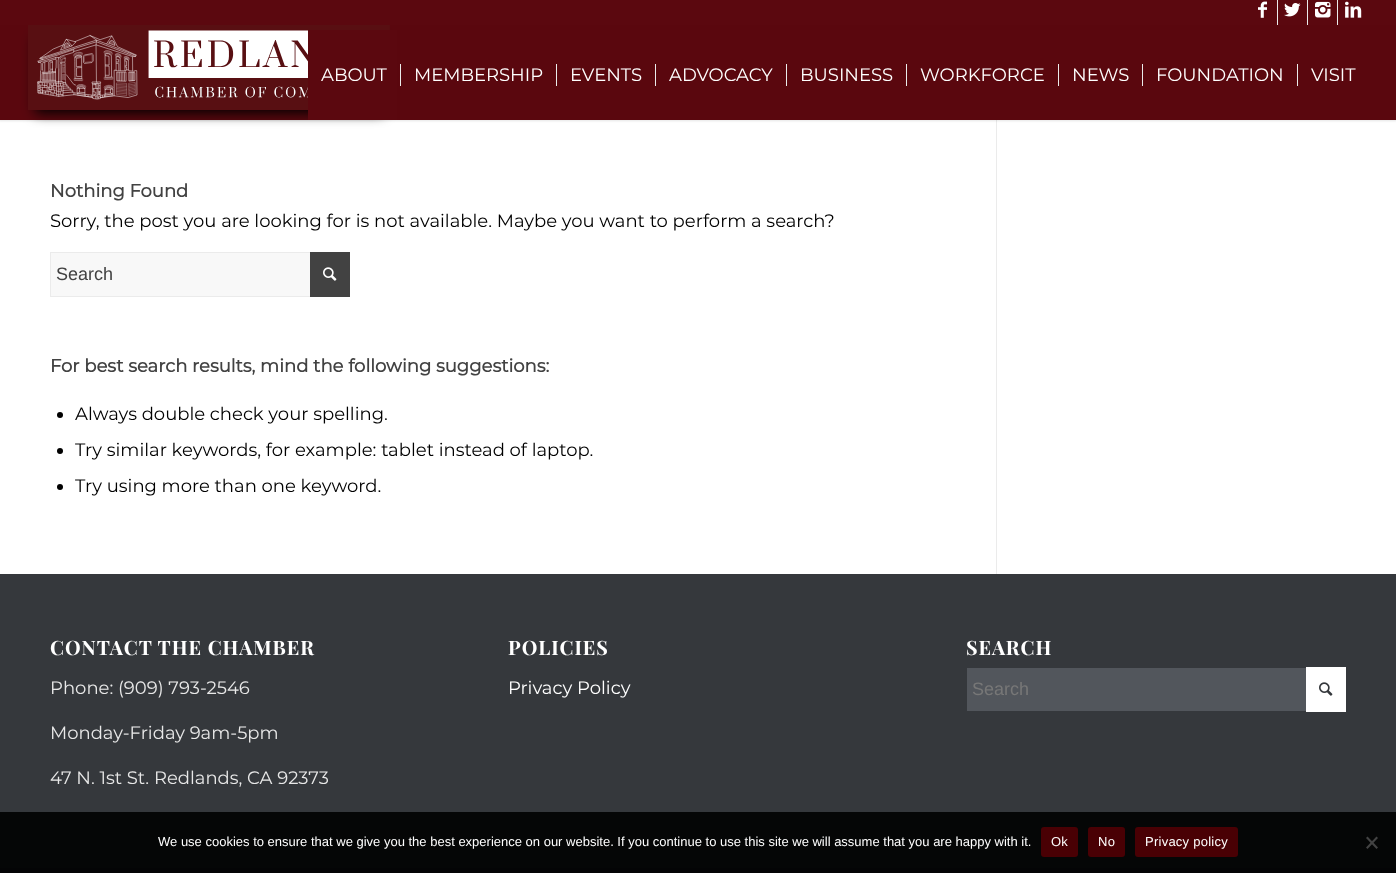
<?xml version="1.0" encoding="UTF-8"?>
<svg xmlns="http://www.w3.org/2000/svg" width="1396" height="873">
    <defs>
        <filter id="blur1" x="-50%" y="-200%" width="200%" height="500%"><feGaussianBlur stdDeviation="1"/></filter>
        <filter id="blur2" x="-50%" y="-200%" width="200%" height="500%"><feGaussianBlur stdDeviation="6.5"/></filter>
    </defs>
    <rect width="100%" height="100%" fill="#FFFFFF"/>
    <rect x="996" y="112" width="1" height="462" fill="#EBEBEB"/>
    <rect x="-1" y="-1" width="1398" height="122" fill="#000000" fill-opacity="0.1" filter="url(#blur1)"/>
    <rect x="0" y="25" width="1396" height="95" fill="#5A070E"/>
    <rect x="35" y="37" width="348" height="76" fill="#000000" filter="url(#blur2)"/>
    <rect x="0" y="0" width="1396" height="25" fill="#5B080F"/>
    <rect x="1277" y="0" width="1" height="25" fill="#EBEBEB"/>
    <image x="1258" y="1" width="9" height="17" href="img_01.png"/>
    <rect x="1307" y="0" width="1" height="25" fill="#EBEBEB"/>
    <image x="1284" y="3" width="17" height="14" href="img_02.png"/>
    <rect x="1337" y="0" width="1" height="25" fill="#EBEBEB"/>
    <image x="1315" y="1" width="16" height="17" href="img_03.png"/>
    <image x="1345" y="1" width="17" height="17" href="img_04.png"/>
    <image x="28" y="25" width="362" height="85" href="img_05.png"/>
    <rect x="308" y="30" width="89" height="90" fill="#5B080F"/>
    <text x="321" y="81" font-family="Montserrat" font-size="18" font-weight="100" fill="#FFFFFF">ABOUT</text>
    <text x="414" y="81" font-family="Montserrat" font-size="18" font-weight="100" fill="#FFFFFF">MEMBERSHIP</text>
    <rect x="400" y="64" width="1" height="22" fill="#EBEBEB"/>
    <text x="570" y="81" font-family="Montserrat" font-size="18" font-weight="100" fill="#FFFFFF">EVENTS</text>
    <rect x="556" y="64" width="1" height="22" fill="#EBEBEB"/>
    <text x="669" y="81" font-family="Montserrat" font-size="18" font-weight="100" fill="#FFFFFF">ADVOCACY</text>
    <rect x="655" y="64" width="1" height="22" fill="#EBEBEB"/>
    <text x="800" y="81" font-family="Montserrat" font-size="18" font-weight="100" fill="#FFFFFF">BUSINESS</text>
    <rect x="786" y="64" width="1" height="22" fill="#EBEBEB"/>
    <text x="920" y="81" font-family="Montserrat" font-size="18" font-weight="100" fill="#FFFFFF">WORKFORCE</text>
    <rect x="906" y="64" width="1" height="22" fill="#EBEBEB"/>
    <text x="1072" y="81" font-family="Montserrat" font-size="18" font-weight="100" fill="#FFFFFF">NEWS</text>
    <rect x="1058" y="64" width="1" height="22" fill="#EBEBEB"/>
    <text x="1156" y="81" font-family="Montserrat" font-size="18" font-weight="100" fill="#FFFFFF">FOUNDATION</text>
    <rect x="1142" y="64" width="1" height="22" fill="#EBEBEB"/>
    <text x="1311" y="81" font-family="Montserrat" font-size="18" font-weight="100" fill="#FFFFFF">VISIT</text>
    <rect x="1297" y="64" width="1" height="22" fill="#EBEBEB"/>
    <text x="50" y="197" font-family="Montserrat" font-size="18" font-weight="700" fill="#424242">Nothing Found</text>
    <text x="50" y="227" font-family="Montserrat" font-size="18" font-weight="100" fill="#000000">Sorry, the post you are looking for is not available. Maybe you want to perform a search?</text>
    <rect x="51" y="253" width="259" height="43" fill="#F8F8F8"/>
    <rect x="50.5" y="252.5" width="299" height="44" fill="none" stroke="#EBEBEB"/>
    <text x="56" y="280" font-family="Liberation Sans" font-size="18" fill="#424242">Search</text>
    <rect x="310" y="252" width="40" height="45" fill="#424242"/>
    <image x="323" y="267" width="14" height="14" href="img_06.png"/>
    <text x="50" y="372" font-family="Montserrat" font-size="18" font-weight="700" fill="#424242">For best search results, mind the following suggestions:</text>
    <circle cx="60" cy="415" r="3" fill="#000000"/>
    <text x="75" y="420" font-family="Montserrat" font-size="18" font-weight="100" fill="#000000">Always double check your spelling.</text>
    <circle cx="60" cy="451" r="3" fill="#000000"/>
    <text x="75" y="456" font-family="Montserrat" font-size="18" font-weight="100" fill="#000000">Try similar keywords, for example: tablet instead of laptop.</text>
    <circle cx="60" cy="487" r="3" fill="#000000"/>
    <text x="75" y="492" font-family="Montserrat" font-size="18" font-weight="100" fill="#000000">Try using more than one keyword.</text>
    <rect x="0" y="574" width="1396" height="238" fill="#35383C"/>
    <rect x="0" y="812" width="1396" height="56" fill="#050606"/>
    <text x="50" y="655" font-family="Playfair Display" font-size="19.75" font-weight="700" letter-spacing="1" fill="#FFFFFF">CONTACT THE CHAMBER</text>
    <text x="50" y="694" font-family="Montserrat" font-size="18" font-weight="100" fill="#E8E8E8">Phone: (909) 793-2546</text>
    <text x="50" y="739" font-family="Montserrat" font-size="18" font-weight="100" fill="#E8E8E8">Monday-Friday 9am-5pm</text>
    <text x="50" y="784" font-family="Montserrat" font-size="18" font-weight="100" fill="#E8E8E8">47 N. 1st St. Redlands, CA 92373</text>
    <text x="508" y="655" font-family="Playfair Display" font-size="19.75" font-weight="700" letter-spacing="1" fill="#FFFFFF">POLICIES</text>
    <text x="508" y="694" font-family="Montserrat" font-size="18" font-weight="100" fill="#FFFFFF">Privacy Policy</text>
    <text x="966" y="655" font-family="Playfair Display" font-size="19.75" font-weight="700" letter-spacing="1" fill="#FFFFFF">SEARCH</text>
    <rect x="967" y="668" width="339" height="43" fill="#52565C"/>
    <text x="972" y="695" font-family="Liberation Sans" font-size="18" fill="#777777">Search</text>
    <rect x="1306" y="667" width="40" height="45" fill="#FFFFFF"/>
    <image x="1319" y="682" width="14" height="14" href="img_07.png"/>
    <rect x="0" y="868" width="1396" height="5" fill="#040405"/>
    <text x="158" y="846" font-family="Liberation Sans" font-size="13" fill="#FFFFFF">We use cookies to ensure that we give you the best experience on our website. If you continue to use this site we will assume that you are happy with it.</text>
    <rect x="1041" y="827" width="37" height="30" rx="3" fill="#490004"/>
    <text x="1051" y="846" font-family="Liberation Sans" font-size="13" letter-spacing="0.25" fill="#FFFFFF">Ok</text>
    <rect x="1088" y="827" width="37" height="30" rx="3" fill="#490004"/>
    <text x="1098" y="846" font-family="Liberation Sans" font-size="13" letter-spacing="0.25" fill="#FFFFFF">No</text>
    <rect x="1135" y="827" width="103" height="30" rx="3" fill="#490004"/>
    <text x="1145" y="846" font-family="Liberation Sans" font-size="13" letter-spacing="0.25" fill="#FFFFFF">Privacy policy</text>
    <path d="M 1376.5 836.5 L 1378 838 L 1367.5 849 L 1366 847.5 Z" fill="#434343"/>
    <path d="M 1366 838 L 1367.5 836.5 L 1378 847.5 L 1376.5 849 Z" fill="#434343"/>
</svg>
